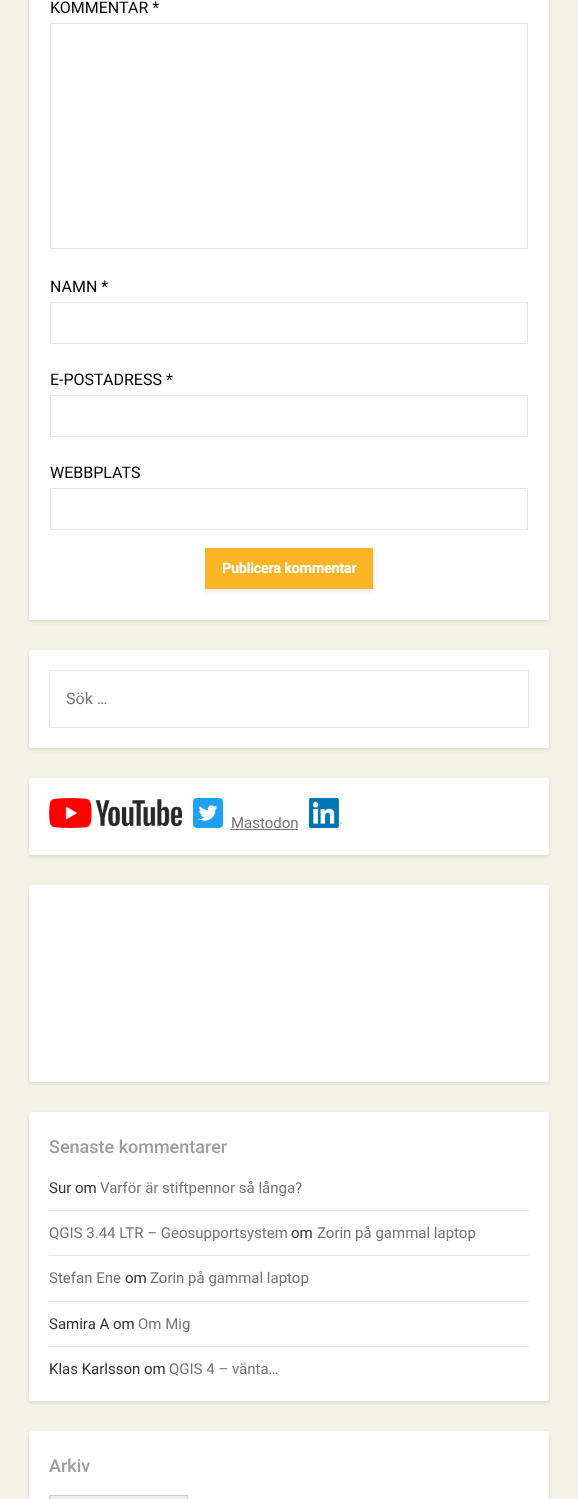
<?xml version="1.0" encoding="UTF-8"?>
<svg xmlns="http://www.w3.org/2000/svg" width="578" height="1499">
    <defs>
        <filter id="blur1" x="-50%" y="-200%" width="200%" height="500%"><feGaussianBlur stdDeviation="2"/></filter>
    </defs>
    <rect width="100%" height="100%" fill="#F4F3E6"/>
    <rect x="29" y="-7" width="520" height="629" rx="1" fill="#000000" fill-opacity="0.1" filter="url(#blur1)"/>
    <rect x="29" y="-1" width="520" height="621" rx="1" fill="#FFFFFF"/>
    <text x="50" y="13" font-family="Roboto" font-size="16" fill="#000000">KOMMENTAR *</text>
    <rect x="50.5" y="23.5" width="477" height="225" fill="none" stroke="#E5E6E9"/>
    <text x="50" y="292" font-family="Roboto" font-size="16" fill="#000000">NAMN *</text>
    <rect x="50.5" y="302.5" width="477" height="41" fill="none" stroke="#E5E6E9"/>
    <text x="50" y="385" font-family="Roboto" font-size="16" fill="#000000">E-POSTADRESS *</text>
    <rect x="50.5" y="395.5" width="477" height="41" fill="none" stroke="#E5E6E9"/>
    <text x="50" y="478" font-family="Roboto" font-size="16" fill="#000000">WEBBPLATS</text>
    <rect x="50.5" y="488.5" width="477" height="41" fill="none" stroke="#E5E6E9"/>
    <rect x="205" y="550" width="168" height="41" fill="#000000" fill-opacity="0.1" filter="url(#blur1)"/>
    <rect x="205" y="548" width="168" height="41" fill="#FAB526"/>
    <text x="222" y="573" font-family="Roboto" font-size="14" font-weight="700" fill="#FFFFFF">Publicera kommentar</text>
    <rect x="29" y="652" width="520" height="98" rx="3" fill="#000000" fill-opacity="0.1" filter="url(#blur1)"/>
    <rect x="29" y="650" width="520" height="98" rx="3" fill="#FFFFFF"/>
    <rect x="49.5" y="670.5" width="479" height="57" fill="none" stroke="#E5E6E9"/>
    <text x="66" y="704" font-family="Roboto" font-size="16" fill="#757575">Sök …</text>
    <rect x="29" y="780" width="520" height="77" rx="3" fill="#000000" fill-opacity="0.1" filter="url(#blur1)"/>
    <rect x="29" y="778" width="520" height="77" rx="3" fill="#FFFFFF"/>
    <image x="49" y="798" width="133" height="30" href="img_01.png"/>
    <image x="193" y="798" width="30" height="30" href="img_02.png"/>
    <text x="231" y="828" font-family="Roboto" font-size="15" fill="#757575">Mastodon</text>
    <rect x="231" y="829" width="67" height="1" fill="#737373"/>
    <image x="309" y="798" width="33" height="30" href="img_03.png"/>
    <rect x="29" y="887" width="520" height="197" rx="3" fill="#000000" fill-opacity="0.1" filter="url(#blur1)"/>
    <rect x="29" y="885" width="520" height="197" rx="3" fill="#FFFFFF"/>
    <rect x="29" y="1114" width="520" height="289" rx="3" fill="#000000" fill-opacity="0.1" filter="url(#blur1)"/>
    <rect x="29" y="1112" width="520" height="289" rx="3" fill="#FFFFFF"/>
    <text x="49" y="1153" font-family="Roboto" font-size="18" font-weight="500" fill="#9E9E9E">Senaste kommentarer</text>
    <rect x="49" y="1210" width="480" height="1" fill="#E6E6E6"/>
    <text x="49" y="1193" font-family="Roboto" font-size="15" fill="#333333">Sur om</text>
    <text x="100" y="1193" font-family="Roboto" font-size="15" fill="#757575">Varför är stiftpennor så långa?</text>
    <rect x="49" y="1255" width="480" height="1" fill="#E6E6E6"/>
    <text x="49" y="1238" font-family="Roboto" font-size="15" fill="#757575">QGIS 3.44 LTR – Geosupportsystem</text>
    <text x="291" y="1238" font-family="Roboto" font-size="15" fill="#333333">om</text>
    <text x="317" y="1238" font-family="Roboto" font-size="15" fill="#757575">Zorin på gammal laptop</text>
    <rect x="49" y="1301" width="480" height="1" fill="#E6E6E6"/>
    <text x="49" y="1283" font-family="Roboto" font-size="15" fill="#757575">Stefan Ene</text>
    <text x="125" y="1283" font-family="Roboto" font-size="15" fill="#333333">om</text>
    <text x="150" y="1283" font-family="Roboto" font-size="15" fill="#757575">Zorin på gammal laptop</text>
    <rect x="49" y="1346" width="480" height="1" fill="#E6E6E6"/>
    <text x="49" y="1329" font-family="Roboto" font-size="15" fill="#333333">Samira A om</text>
    <text x="138" y="1329" font-family="Roboto" font-size="15" fill="#757575">Om Mig</text>
    <text x="49" y="1374" font-family="Roboto" font-size="15" fill="#333333">Klas Karlsson om</text>
    <text x="169" y="1374" font-family="Roboto" font-size="15" fill="#757575">QGIS 4 – vänta…</text>
    <rect x="29" y="1433" width="520" height="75" rx="3" fill="#000000" fill-opacity="0.1" filter="url(#blur1)"/>
    <rect x="29" y="1431" width="520" height="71" rx="3" fill="#FFFFFF"/>
    <text x="49" y="1472" font-family="Roboto" font-size="18" font-weight="500" fill="#9E9E9E">Arkiv</text>
    <rect x="49.5" y="1495.5" width="138" height="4" fill="#EFEFEF" stroke="#CCCCCC"/>
</svg>
